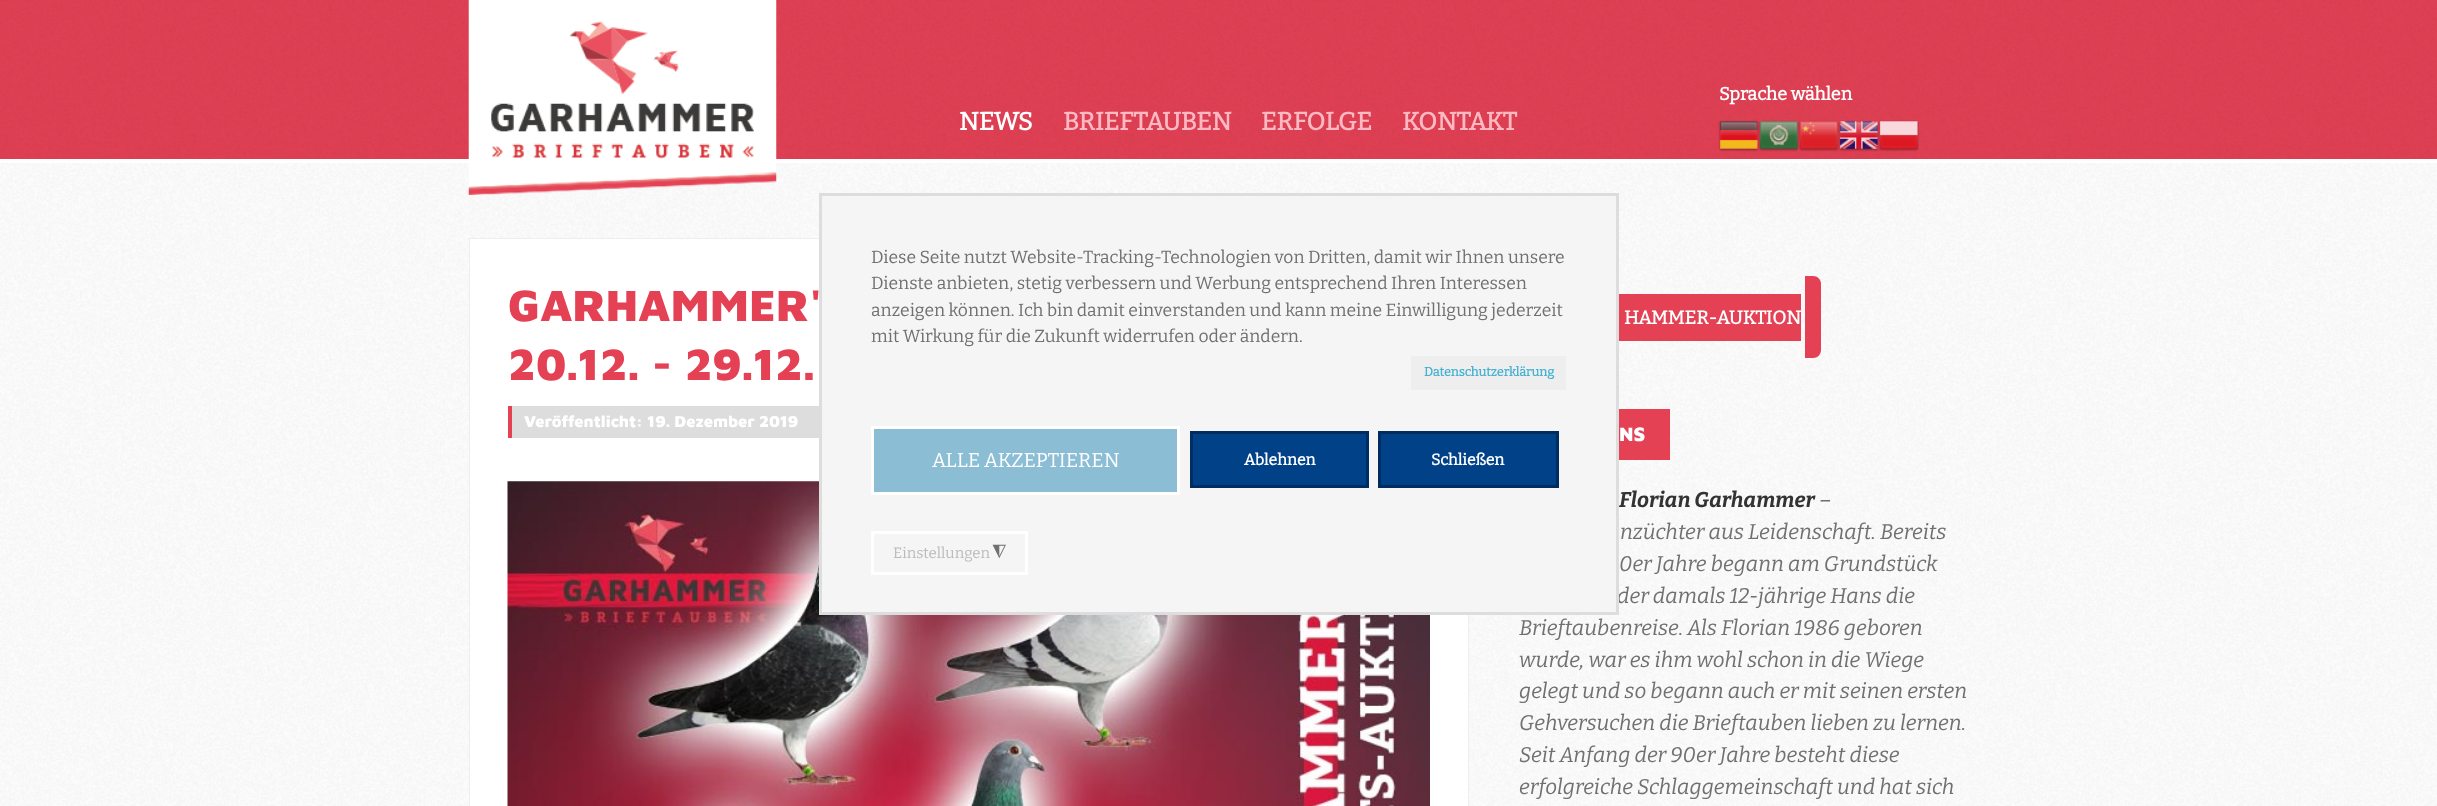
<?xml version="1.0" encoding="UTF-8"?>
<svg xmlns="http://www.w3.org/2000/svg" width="2437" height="806">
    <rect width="100%" height="100%" fill="#FFFFFF"/>
    <image x="0" y="0" width="2437" height="159" href="img_01.png"/>
    <image x="0" y="163" width="2437" height="643" href="img_08.png"/>
    <image x="468" y="0" width="309" height="195" href="img_02.png"/>
    <text x="1719" y="100" font-family="Bitter" font-size="18" font-weight="700" fill="#FFFFFF">Sprache wählen</text>
    <image x="1718" y="120" width="41" height="32" href="img_03.png"/>
    <image x="1758" y="120" width="41" height="32" href="img_04.png"/>
    <image x="1798" y="120" width="41" height="32" href="img_05.png"/>
    <image x="1838" y="120" width="41" height="32" href="img_06.png"/>
    <image x="1878" y="120" width="41" height="32" href="img_07.png"/>
    <text x="959" y="130" font-family="Bitter" font-size="25" font-weight="700" fill="#FFFFFF">NEWS</text>
    <text x="1063" y="130" font-family="Bitter" font-size="25" font-weight="700" fill="#FEB9C2">BRIEFTAUBEN</text>
    <text x="1261" y="130" font-family="Bitter" font-size="25" font-weight="700" fill="#FEB9C2">ERFOLGE</text>
    <text x="1402" y="130" font-family="Bitter" font-size="25" font-weight="700" fill="#FEB9C2">KONTAKT</text>
    <rect x="469.5" y="238.5" width="999" height="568" fill="#FFFFFF" stroke="#EEEEEE"/>
    <text font-family="Maven Pro" font-size="45" font-weight="900" fill="#E44155">
        <tspan x="508" y="321">GARHAMMER'</tspan>
        <tspan x="508" y="380">20.12. - 29.12.</tspan>
    </text>
    <rect x="512" y="406" width="307" height="32" fill="#DDDDDD"/>
    <rect x="508" y="406" width="4" height="32" fill="#E44155"/>
    <text x="524" y="427" font-family="Maven Pro" font-size="16.25" font-weight="900" fill="#FFFFFF">Veröffentlicht: 19. Dezember 2019</text>
    <image x="507" y="481" width="923" height="325" href="img_09.png"/>
    <rect x="1619" y="294" width="182" height="47" fill="#E44155"/>
    <text x="1624" y="324" font-family="Bitter" font-size="18.75" font-weight="700" fill="#FFFFFF">HAMMER-AUKTION</text>
    <path d="M 1805 276 H 1813 C 1817.5 276 1821 279.5 1821 284 V 350 C 1821 354.5 1817.5 358 1813 358 H 1805 Z" fill="#E44155"/>
    <rect x="1619" y="409" width="51" height="51" fill="#E44155"/>
    <text x="1619" y="441" font-family="Maven Pro" font-size="20" font-weight="900" fill="#FFFFFF">NS</text>
    <text x="1619" y="507" font-family="Bitter" font-size="21.25" font-weight="100" font-style="italic" fill="#333333">Florian Garhammer</text>
    <text x="1819" y="507" font-family="'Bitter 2'" font-size="21.25" font-weight="100" font-style="italic" fill="#707070">–</text>
    <text x="1620" y="539" font-family="'Bitter 2'" font-size="21.25" font-weight="100" font-style="italic" fill="#707070">nzüchter aus Leidenschaft. Bereits</text>
    <text x="1619" y="571" font-family="'Bitter 2'" font-size="21.25" font-weight="100" font-style="italic" fill="#707070">0er Jahre begann am Grundstück</text>
    <text x="1617" y="603" font-family="'Bitter 2'" font-size="21.25" font-weight="100" font-style="italic" fill="#707070">der damals 12-jährige Hans die</text>
    <text font-family="'Bitter 2'" font-size="21.25" font-weight="100" font-style="italic" fill="#707070">
        <tspan x="1519" y="635">Brieftaubenreise. Als Florian 1986 geboren</tspan>
        <tspan x="1519" y="667">wurde, war es ihm wohl schon in die Wiege</tspan>
        <tspan x="1519" y="698">gelegt und so begann auch er mit seinen ersten</tspan>
        <tspan x="1519" y="730">Gehversuchen die Brieftauben lieben zu lernen.</tspan>
        <tspan x="1519" y="762">Seit Anfang der 90er Jahre besteht diese</tspan>
        <tspan x="1519" y="794">erfolgreiche Schlaggemeinschaft und hat sich</tspan>
    </text>
    <rect x="820.5" y="194.5" width="797" height="419" fill="#F5F5F5" stroke="#DDDDDD" stroke-width="3"/>
    <text font-family="Bitter" font-size="17.5" font-weight="100" fill="#707070">
        <tspan x="871" y="263">Diese Seite nutzt Website-Tracking-Technologien von Dritten, damit wir Ihnen unsere</tspan>
        <tspan x="871" y="289">Dienste anbieten, stetig verbessern und Werbung entsprechend Ihren Interessen</tspan>
        <tspan x="871" y="316">anzeigen können. Ich bin damit einverstanden und kann meine Einwilligung jederzeit</tspan>
        <tspan x="871" y="342">mit Wirkung für die Zukunft widerrufen oder ändern.</tspan>
    </text>
    <rect x="1411" y="356" width="155" height="34" fill="#EEEEEE"/>
    <text x="1424" y="376" font-family="Bitter" font-size="12.5" font-weight="700" fill="#46B2D2">Datenschutzerklärung</text>
    <rect x="872.5" y="427.5" width="306" height="66" fill="#8BBDD5" stroke="#FFFFFF" stroke-width="3"/>
    <text x="932" y="467" font-family="Bitter" font-size="20" font-weight="100" fill="#FFFFFF">ALLE AKZEPTIEREN</text>
    <rect x="1191.5" y="432.5" width="176" height="54" fill="#004188" stroke="#002D61" stroke-width="3"/>
    <text x="1244" y="465" font-family="Bitter" font-size="15.75" font-weight="700" fill="#FFFFFF">Ablehnen</text>
    <rect x="1379.5" y="432.5" width="178" height="54" fill="#004188" stroke="#002D61" stroke-width="3"/>
    <text x="1431" y="465" font-family="Bitter" font-size="15.75" font-weight="700" fill="#FFFFFF">Schließen</text>
    <rect x="872.5" y="532.5" width="154" height="41" fill="none" stroke="#FFFFFF" stroke-width="3"/>
    <text x="893" y="558" font-family="Bitter" font-size="15" font-weight="100" fill="#BBBBBB">Einstellungen</text>
    <text x="1006" y="547" transform="rotate(180 1006 547)" font-family="DejaVu Sans" font-size="17.5" fill="#707070">◮</text>
</svg>
